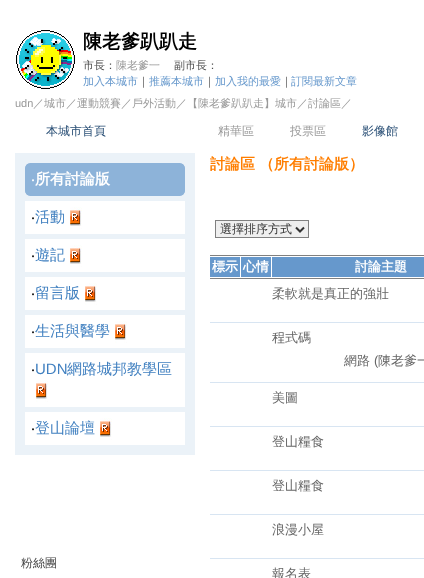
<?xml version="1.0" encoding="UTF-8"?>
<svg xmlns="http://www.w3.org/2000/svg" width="424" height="578">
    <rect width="100%" height="100%" fill="#FFFFFF"/>
    <image x="16" y="30" width="59" height="59" href="img_01.png"/>
    <text x="83" y="48" font-family="WenQuanYi Zen Hei" font-size="19" font-weight="700" fill="#000000">陳老爹趴趴走</text>
    <text x="83" y="69" font-family="WenQuanYi Zen Hei" font-size="11" font-weight="500" fill="#4D4D4D">市長：</text>
    <text x="116" y="69" font-family="WenQuanYi Zen Hei" font-size="11" font-weight="500" fill="#999999">陳老爹一</text>
    <text x="174" y="69" font-family="WenQuanYi Zen Hei" font-size="11" font-weight="500" fill="#4D4D4D">副市長：</text>
    <text x="83" y="85" font-family="WenQuanYi Zen Hei" font-size="11" font-weight="500" fill="#6698CC">加入本城市</text>
    <text x="138" y="85" font-family="WenQuanYi Zen Hei" font-size="11" font-weight="500" fill="#4D4D4D">｜</text>
    <text x="149" y="85" font-family="WenQuanYi Zen Hei" font-size="11" font-weight="500" fill="#6698CC">推薦本城市</text>
    <text x="204" y="85" font-family="WenQuanYi Zen Hei" font-size="11" font-weight="500" fill="#4D4D4D">｜</text>
    <text x="215" y="85" font-family="WenQuanYi Zen Hei" font-size="11" font-weight="500" fill="#6698CC">加入我的最愛</text>
    <text x="281" y="85" font-family="WenQuanYi Zen Hei" font-size="11" font-weight="500" fill="#4D4D4D">｜</text>
    <text x="291" y="85" font-family="WenQuanYi Zen Hei" font-size="11" font-weight="500" fill="#6698CC">訂閱最新文章</text>
    <text x="15" y="107" font-family="Liberation Sans" font-size="11" fill="#999999">udn</text>
    <text x="33" y="107" font-family="WenQuanYi Zen Hei" font-size="11" font-weight="500" fill="#999999">／城市／運動競賽／戶外活動／【陳老爹趴趴走】城市／討論區／</text>
    <text x="46" y="135" font-family="WenQuanYi Zen Hei" font-size="12" font-weight="500" fill="#274D74">本城市首頁</text>
    <text x="218" y="135" font-family="WenQuanYi Zen Hei" font-size="12" font-weight="500" fill="#999999">精華區</text>
    <text x="290" y="135" font-family="WenQuanYi Zen Hei" font-size="12" font-weight="500" fill="#999999">投票區</text>
    <text x="362" y="135" font-family="WenQuanYi Zen Hei" font-size="12" font-weight="500" fill="#274D74">影像館</text>
    <rect x="15" y="153" width="180" height="302" fill="#EBF2F8"/>
    <image x="25" y="163" width="5" height="5" href="img_02.png"/>
    <rect x="30" y="163" width="150" height="5" fill="#8DB3D9"/>
    <image x="180" y="163" width="5" height="5" href="img_03.png"/>
    <rect x="25" y="168" width="160" height="23" fill="#8DB3D9"/>
    <text x="31" y="184" font-family="Noto Sans" font-size="15" fill="#FFFFFF">‧</text>
    <text x="35" y="184" font-family="WenQuanYi Zen Hei" font-size="15" font-weight="700" fill="#FFFFFF">所有討論版</text>
    <image x="25" y="191" width="5" height="5" href="img_04.png"/>
    <rect x="30" y="191" width="150" height="5" fill="#8DB3D9"/>
    <image x="180" y="191" width="5" height="5" href="img_05.png"/>
    <rect x="25" y="201" width="160" height="5" fill="#FFFFFF"/>
    <rect x="25" y="206" width="160" height="23" fill="#FFFFFF"/>
    <text x="31" y="222" font-family="Noto Sans" font-size="15" fill="#000000">‧</text>
    <text x="35" y="222" font-family="WenQuanYi Zen Hei" font-size="15" font-weight="500" fill="#4180C0">活動</text>
    <image x="70" y="207" width="12" height="22" href="img_06.png"/>
    <rect x="25" y="229" width="160" height="5" fill="#FFFFFF"/>
    <rect x="25" y="239" width="160" height="5" fill="#FFFFFF"/>
    <rect x="25" y="244" width="160" height="23" fill="#FFFFFF"/>
    <text x="31" y="260" font-family="Noto Sans" font-size="15" fill="#000000">‧</text>
    <text x="35" y="260" font-family="WenQuanYi Zen Hei" font-size="15" font-weight="500" fill="#4180C0">遊記</text>
    <image x="70" y="245" width="12" height="22" href="img_06.png"/>
    <rect x="25" y="267" width="160" height="5" fill="#FFFFFF"/>
    <rect x="25" y="277" width="160" height="5" fill="#FFFFFF"/>
    <rect x="25" y="282" width="160" height="23" fill="#FFFFFF"/>
    <text x="31" y="298" font-family="Noto Sans" font-size="15" fill="#000000">‧</text>
    <text x="35" y="298" font-family="WenQuanYi Zen Hei" font-size="15" font-weight="500" fill="#4180C0">留言版</text>
    <image x="85" y="283" width="12" height="22" href="img_06.png"/>
    <rect x="25" y="305" width="160" height="5" fill="#FFFFFF"/>
    <rect x="25" y="315" width="160" height="5" fill="#FFFFFF"/>
    <rect x="25" y="320" width="160" height="23" fill="#FFFFFF"/>
    <text x="31" y="336" font-family="Noto Sans" font-size="15" fill="#000000">‧</text>
    <text x="35" y="336" font-family="WenQuanYi Zen Hei" font-size="15" font-weight="500" fill="#4180C0">生活與醫學</text>
    <image x="115" y="321" width="12" height="22" href="img_06.png"/>
    <rect x="25" y="343" width="160" height="5" fill="#FFFFFF"/>
    <rect x="25" y="353" width="160" height="5" fill="#FFFFFF"/>
    <rect x="25" y="358" width="160" height="44" fill="#FFFFFF"/>
    <text x="31" y="374" font-family="Noto Sans" font-size="15" fill="#000000">‧</text>
    <text x="35" y="374" font-family="Liberation Sans" font-size="15" fill="#4180C0">UDN</text>
    <text x="67" y="374" font-family="WenQuanYi Zen Hei" font-size="15" font-weight="500" fill="#4180C0">網路城邦教學區</text>
    <image x="36" y="380" width="12" height="22" href="img_06.png"/>
    <rect x="25" y="402" width="160" height="5" fill="#FFFFFF"/>
    <rect x="25" y="412" width="160" height="5" fill="#FFFFFF"/>
    <rect x="25" y="417" width="160" height="23" fill="#FFFFFF"/>
    <text x="31" y="433" font-family="Noto Sans" font-size="15" fill="#000000">‧</text>
    <text x="35" y="433" font-family="WenQuanYi Zen Hei" font-size="15" font-weight="500" fill="#4180C0">登山論壇</text>
    <image x="100" y="418" width="12" height="22" href="img_06.png"/>
    <rect x="25" y="440" width="160" height="5" fill="#FFFFFF"/>
    <text x="210" y="169" font-family="WenQuanYi Zen Hei" font-size="15" font-weight="700" fill="#FF7E00">討論區</text>
    <text x="259" y="169" font-family="WenQuanYi Zen Hei" font-size="15" font-weight="700" fill="#FF7E00">（所有討論版）</text>
    <rect x="215.5" y="220.5" width="93" height="17" fill="#EFEFEF" stroke="#808080"/>
    <path d="M 296 227.5 L 300 231.5 L 304 227.5" fill="none" stroke="#333333" stroke-width="2"/>
    <text x="220" y="233" font-family="WenQuanYi Zen Hei" font-size="12" font-weight="500" fill="#333333">選擇排序方式</text>
    <rect x="210" y="257" width="214" height="20" fill="#6698CC"/>
    <rect x="210" y="255" width="214" height="1" fill="#808080"/>
    <text x="212" y="271" font-family="WenQuanYi Zen Hei" font-size="13" font-weight="700" fill="#FFFFFF">標示</text>
    <rect x="240" y="257" width="1" height="20" fill="#FFFFFF"/>
    <text x="243" y="271" font-family="WenQuanYi Zen Hei" font-size="13" font-weight="700" fill="#FFFFFF">心情</text>
    <rect x="271" y="257" width="1" height="20" fill="#FFFFFF"/>
    <text x="355" y="271" font-family="WenQuanYi Zen Hei" font-size="13" font-weight="700" fill="#FFFFFF">討論主題</text>
    <rect x="210" y="278" width="214" height="1" fill="#808080"/>
    <text x="272" y="298" font-family="WenQuanYi Zen Hei" font-size="13" font-weight="500" fill="#666666">柔軟就是真正的強壯</text>
    <rect x="210" y="322" width="214" height="1" fill="#D8E5F2"/>
    <text x="272" y="342" font-family="WenQuanYi Zen Hei" font-size="13" font-weight="500" fill="#666666">程式碼</text>
    <text x="344" y="365" font-family="WenQuanYi Zen Hei" font-size="13" font-weight="500" fill="#666666">網路</text>
    <text x="374" y="365" font-family="Liberation Sans" font-size="13" fill="#666666">(</text>
    <text x="378" y="365" font-family="WenQuanYi Zen Hei" font-size="13" font-weight="500" fill="#666666">陳老爹一</text>
    <rect x="210" y="382" width="214" height="1" fill="#D8E5F2"/>
    <text x="272" y="402" font-family="WenQuanYi Zen Hei" font-size="13" font-weight="500" fill="#666666">美圖</text>
    <rect x="210" y="426" width="214" height="1" fill="#D8E5F2"/>
    <text x="272" y="446" font-family="WenQuanYi Zen Hei" font-size="13" font-weight="500" fill="#666666">登山糧食</text>
    <rect x="210" y="470" width="214" height="1" fill="#D8E5F2"/>
    <text x="272" y="490" font-family="WenQuanYi Zen Hei" font-size="13" font-weight="500" fill="#666666">登山糧食</text>
    <rect x="210" y="514" width="214" height="1" fill="#D8E5F2"/>
    <text x="272" y="534" font-family="WenQuanYi Zen Hei" font-size="13" font-weight="500" fill="#666666">浪漫小屋</text>
    <rect x="210" y="558" width="214" height="1" fill="#D8E5F2"/>
    <text x="272" y="578" font-family="WenQuanYi Zen Hei" font-size="13" font-weight="500" fill="#666666">報名表</text>
    <text x="21" y="567" font-family="WenQuanYi Zen Hei" font-size="12" font-weight="500" fill="#444444">粉絲團</text>
</svg>
